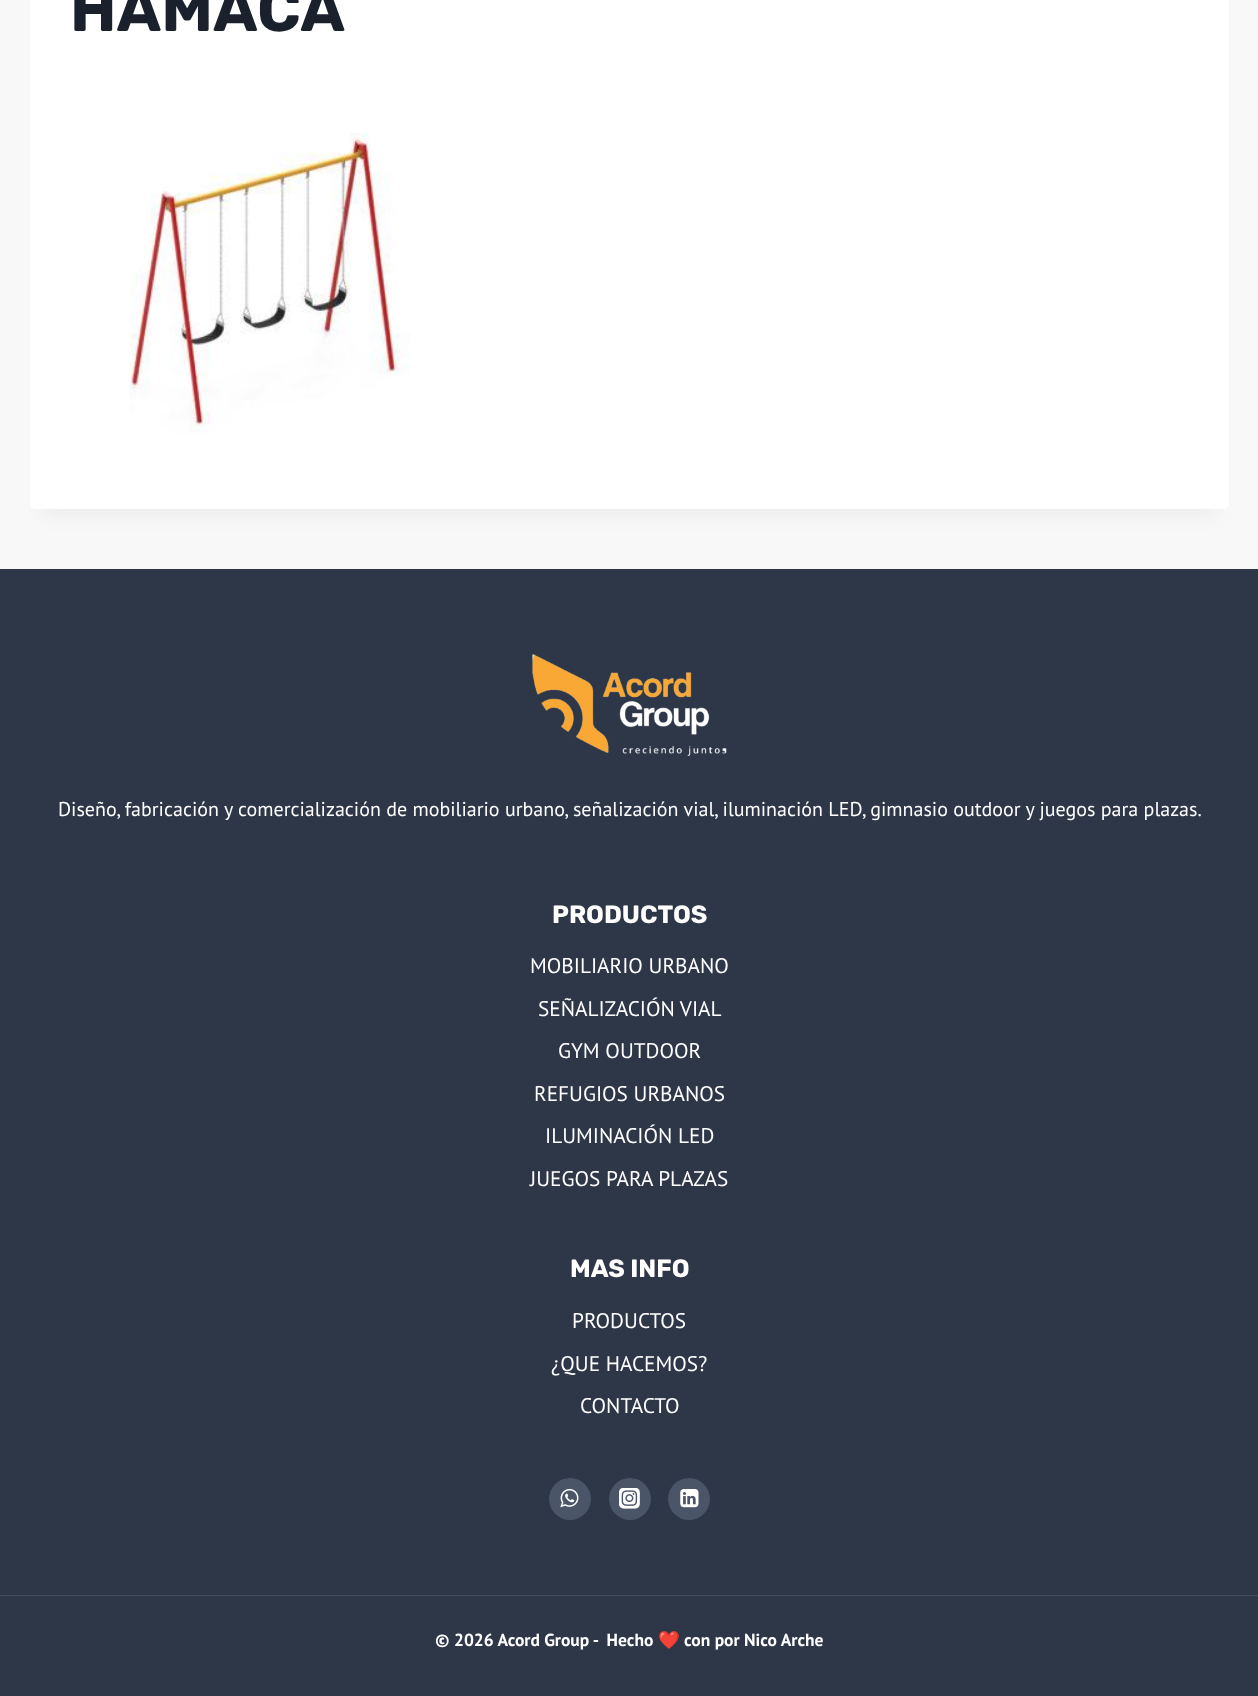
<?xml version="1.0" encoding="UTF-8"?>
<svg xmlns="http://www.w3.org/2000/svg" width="1258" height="1696">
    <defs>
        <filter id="blur1" x="-50%" y="-200%" width="200%" height="500%"><feGaussianBlur stdDeviation="9.5"/></filter>
    </defs>
    <rect width="100%" height="100%" fill="#F8F8F8"/>
    <rect x="43" y="-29" width="1173" height="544" fill="#000000" fill-opacity="0.05" filter="url(#blur1)"/>
    <rect x="30" y="-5" width="1199" height="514" rx="5" fill="#FFFFFF"/>
    <text x="70" y="31" font-family="Rubik" font-size="62.5" font-weight="700" fill="#1A202C">HAMACA</text>
    <image x="129" y="133" width="281" height="301" href="img_01.png"/>
    <rect x="0" y="569" width="1258" height="1127" fill="#2D3748"/>
    <image x="532" y="654" width="195" height="102" href="img_02.png"/>
    <text x="58" y="816" font-family="PT Sans" font-size="20" fill="#FFFFFF">Diseño, fabricación y comercialización de mobiliario urbano, señalización vial, iluminación LED, gimnasio outdoor y juegos para plazas.</text>
    <text x="552" y="923" font-family="Rubik" font-size="25" font-weight="700" fill="#FFFFFF">PRODUCTOS</text>
    <text x="530" y="973" font-family="PT Sans" font-size="21.25" fill="#FFFFFF">MOBILIARIO URBANO</text>
    <text x="538" y="1016" font-family="PT Sans" font-size="21.25" fill="#FFFFFF">SEÑALIZACIÓN VIAL</text>
    <text x="558" y="1058" font-family="PT Sans" font-size="21.25" fill="#FFFFFF">GYM OUTDOOR</text>
    <text x="534" y="1101" font-family="PT Sans" font-size="21.25" fill="#FFFFFF">REFUGIOS URBANOS</text>
    <text x="545" y="1143" font-family="PT Sans" font-size="21.25" fill="#FFFFFF">ILUMINACIÓN LED</text>
    <text x="530" y="1186" font-family="PT Sans" font-size="21.25" fill="#FFFFFF">JUEGOS PARA PLAZAS</text>
    <text x="570" y="1277" font-family="Rubik" font-size="25" font-weight="700" fill="#FFFFFF">MAS INFO</text>
    <text x="572" y="1328" font-family="PT Sans" font-size="21.25" fill="#FFFFFF">PRODUCTOS</text>
    <text x="551" y="1371" font-family="PT Sans" font-size="21.25" fill="#FFFFFF">¿QUE HACEMOS?</text>
    <text x="580" y="1413" font-family="PT Sans" font-size="21.25" fill="#FFFFFF">CONTACTO</text>
    <circle cx="570" cy="1499" r="21" fill="#4A5568"/>
    <image x="560" y="1488" width="19" height="20" href="img_03.png"/>
    <circle cx="630" cy="1499" r="21" fill="#4A5568"/>
    <image x="619" y="1488" width="21" height="21" href="img_04.png"/>
    <circle cx="689" cy="1499" r="21" fill="#4A5568"/>
    <image x="680" y="1489" width="19" height="19" href="img_05.png"/>
    <rect x="0" y="1595" width="1258" height="1" fill="#42505C"/>
    <text x="435" y="1646" font-family="PT Sans" font-size="17.5" font-weight="700" fill="#FFFFFF" xml:space="preserve">© 2026 Acord Group -  Hecho</text>
    <text x="658" y="1646" font-family="Noto Color Emoji" font-size="17.5" font-weight="700" fill="#FFFFFF">❤️</text>
    <text x="684" y="1646" font-family="PT Sans" font-size="17.5" font-weight="700" fill="#FFFFFF">con por Nico Arche</text>
</svg>
